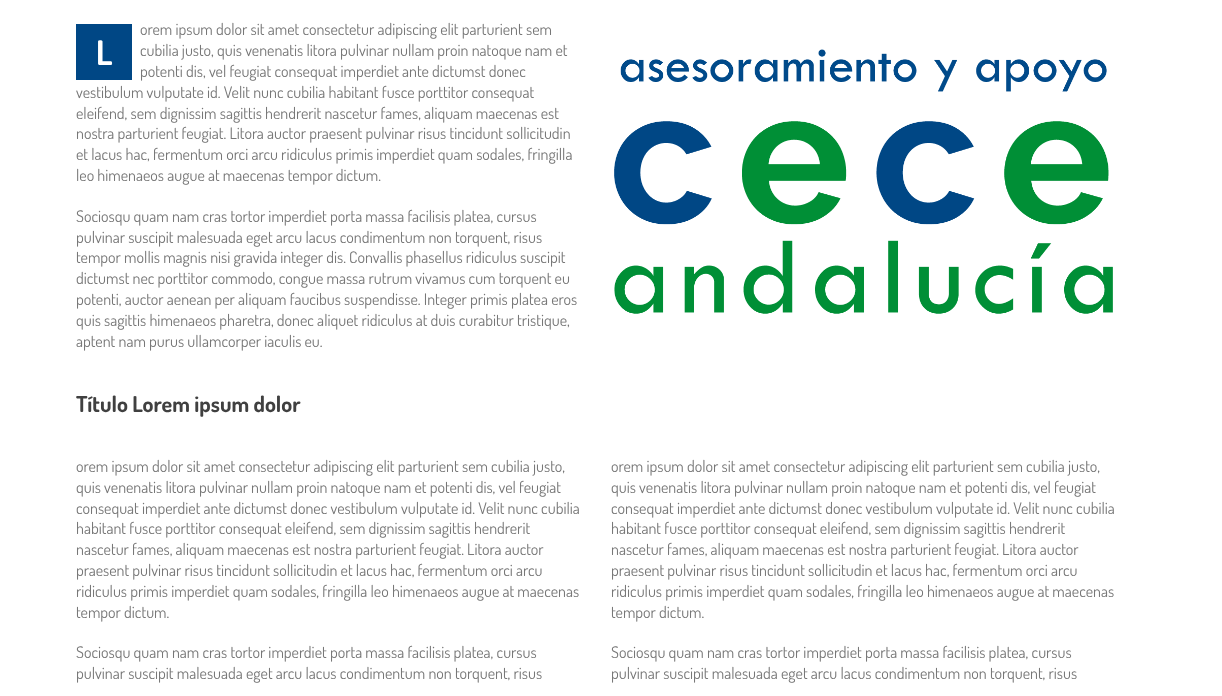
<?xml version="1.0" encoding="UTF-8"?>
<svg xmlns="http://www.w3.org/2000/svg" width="1222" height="696">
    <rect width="100%" height="100%" fill="#FFFFFF"/>
    <text font-family="Dosis" font-size="16" fill="#777777">
        <tspan x="140" y="35">orem ipsum dolor sit amet consectetur adipiscing elit parturient sem</tspan>
        <tspan x="140" y="56">cubilia justo, quis venenatis litora pulvinar nullam proin natoque nam et</tspan>
        <tspan x="140" y="77">potenti dis, vel feugiat consequat imperdiet ante dictumst donec</tspan>
    </text>
    <text font-family="Dosis" font-size="16" fill="#777777">
        <tspan x="76" y="98">vestibulum vulputate id. Velit nunc cubilia habitant fusce porttitor consequat</tspan>
        <tspan x="76" y="119">eleifend, sem dignissim sagittis hendrerit nascetur fames, aliquam maecenas est</tspan>
        <tspan x="76" y="139">nostra parturient feugiat. Litora auctor praesent pulvinar risus tincidunt sollicitudin</tspan>
        <tspan x="76" y="160">et lacus hac, fermentum orci arcu ridiculus primis imperdiet quam sodales, fringilla</tspan>
        <tspan x="76" y="181">leo himenaeos augue at maecenas tempor dictum.</tspan>
    </text>
    <text font-family="Dosis" font-size="16" fill="#777777">
        <tspan x="76" y="222">Sociosqu quam nam cras tortor imperdiet porta massa facilisis platea, cursus</tspan>
        <tspan x="76" y="243">pulvinar suscipit malesuada eget arcu lacus condimentum non torquent, risus</tspan>
        <tspan x="76" y="263">tempor mollis magnis nisi gravida integer dis. Convallis phasellus ridiculus suscipit</tspan>
        <tspan x="76" y="284">dictumst nec porttitor commodo, congue massa rutrum vivamus cum torquent eu</tspan>
        <tspan x="76" y="305">potenti, auctor aenean per aliquam faucibus suspendisse. Integer primis platea eros</tspan>
        <tspan x="76" y="326">quis sagittis himenaeos pharetra, donec aliquet ridiculus at duis curabitur tristique,</tspan>
        <tspan x="76" y="347">aptent nam purus ullamcorper iaculis eu.</tspan>
    </text>
    <rect x="76" y="24" width="56" height="56" fill="#004785"/>
    <text x="96" y="65" font-family="Dosis" font-size="34" font-weight="700" fill="#FFFFFF">L</text>
    <image x="614" y="49" width="499" height="265" href="img_01.png"/>
    <text x="76" y="412" font-family="Dosis" font-size="22" font-weight="700" fill="#404040">Título Lorem ipsum dolor</text>
    <text font-family="Dosis" font-size="16" fill="#777777">
        <tspan x="76" y="472">orem ipsum dolor sit amet consectetur adipiscing elit parturient sem cubilia justo,</tspan>
        <tspan x="76" y="493">quis venenatis litora pulvinar nullam proin natoque nam et potenti dis, vel feugiat</tspan>
        <tspan x="76" y="514">consequat imperdiet ante dictumst donec vestibulum vulputate id. Velit nunc cubilia</tspan>
        <tspan x="76" y="534">habitant fusce porttitor consequat eleifend, sem dignissim sagittis hendrerit</tspan>
        <tspan x="76" y="555">nascetur fames, aliquam maecenas est nostra parturient feugiat. Litora auctor</tspan>
        <tspan x="76" y="576">praesent pulvinar risus tincidunt sollicitudin et lacus hac, fermentum orci arcu</tspan>
        <tspan x="76" y="597">ridiculus primis imperdiet quam sodales, fringilla leo himenaeos augue at maecenas</tspan>
        <tspan x="76" y="618">tempor dictum.</tspan>
    </text>
    <text font-family="Dosis" font-size="16" fill="#777777">
        <tspan x="76" y="658">Sociosqu quam nam cras tortor imperdiet porta massa facilisis platea, cursus</tspan>
        <tspan x="76" y="679">pulvinar suscipit malesuada eget arcu lacus condimentum non torquent, risus</tspan>
    </text>
    <text font-family="Dosis" font-size="16" fill="#777777">
        <tspan x="611" y="472">orem ipsum dolor sit amet consectetur adipiscing elit parturient sem cubilia justo,</tspan>
        <tspan x="611" y="493">quis venenatis litora pulvinar nullam proin natoque nam et potenti dis, vel feugiat</tspan>
        <tspan x="611" y="514">consequat imperdiet ante dictumst donec vestibulum vulputate id. Velit nunc cubilia</tspan>
        <tspan x="611" y="534">habitant fusce porttitor consequat eleifend, sem dignissim sagittis hendrerit</tspan>
        <tspan x="611" y="555">nascetur fames, aliquam maecenas est nostra parturient feugiat. Litora auctor</tspan>
        <tspan x="611" y="576">praesent pulvinar risus tincidunt sollicitudin et lacus hac, fermentum orci arcu</tspan>
        <tspan x="611" y="597">ridiculus primis imperdiet quam sodales, fringilla leo himenaeos augue at maecenas</tspan>
        <tspan x="611" y="618">tempor dictum.</tspan>
    </text>
    <text font-family="Dosis" font-size="16" fill="#777777">
        <tspan x="611" y="658">Sociosqu quam nam cras tortor imperdiet porta massa facilisis platea, cursus</tspan>
        <tspan x="611" y="679">pulvinar suscipit malesuada eget arcu lacus condimentum non torquent, risus</tspan>
    </text>
</svg>
